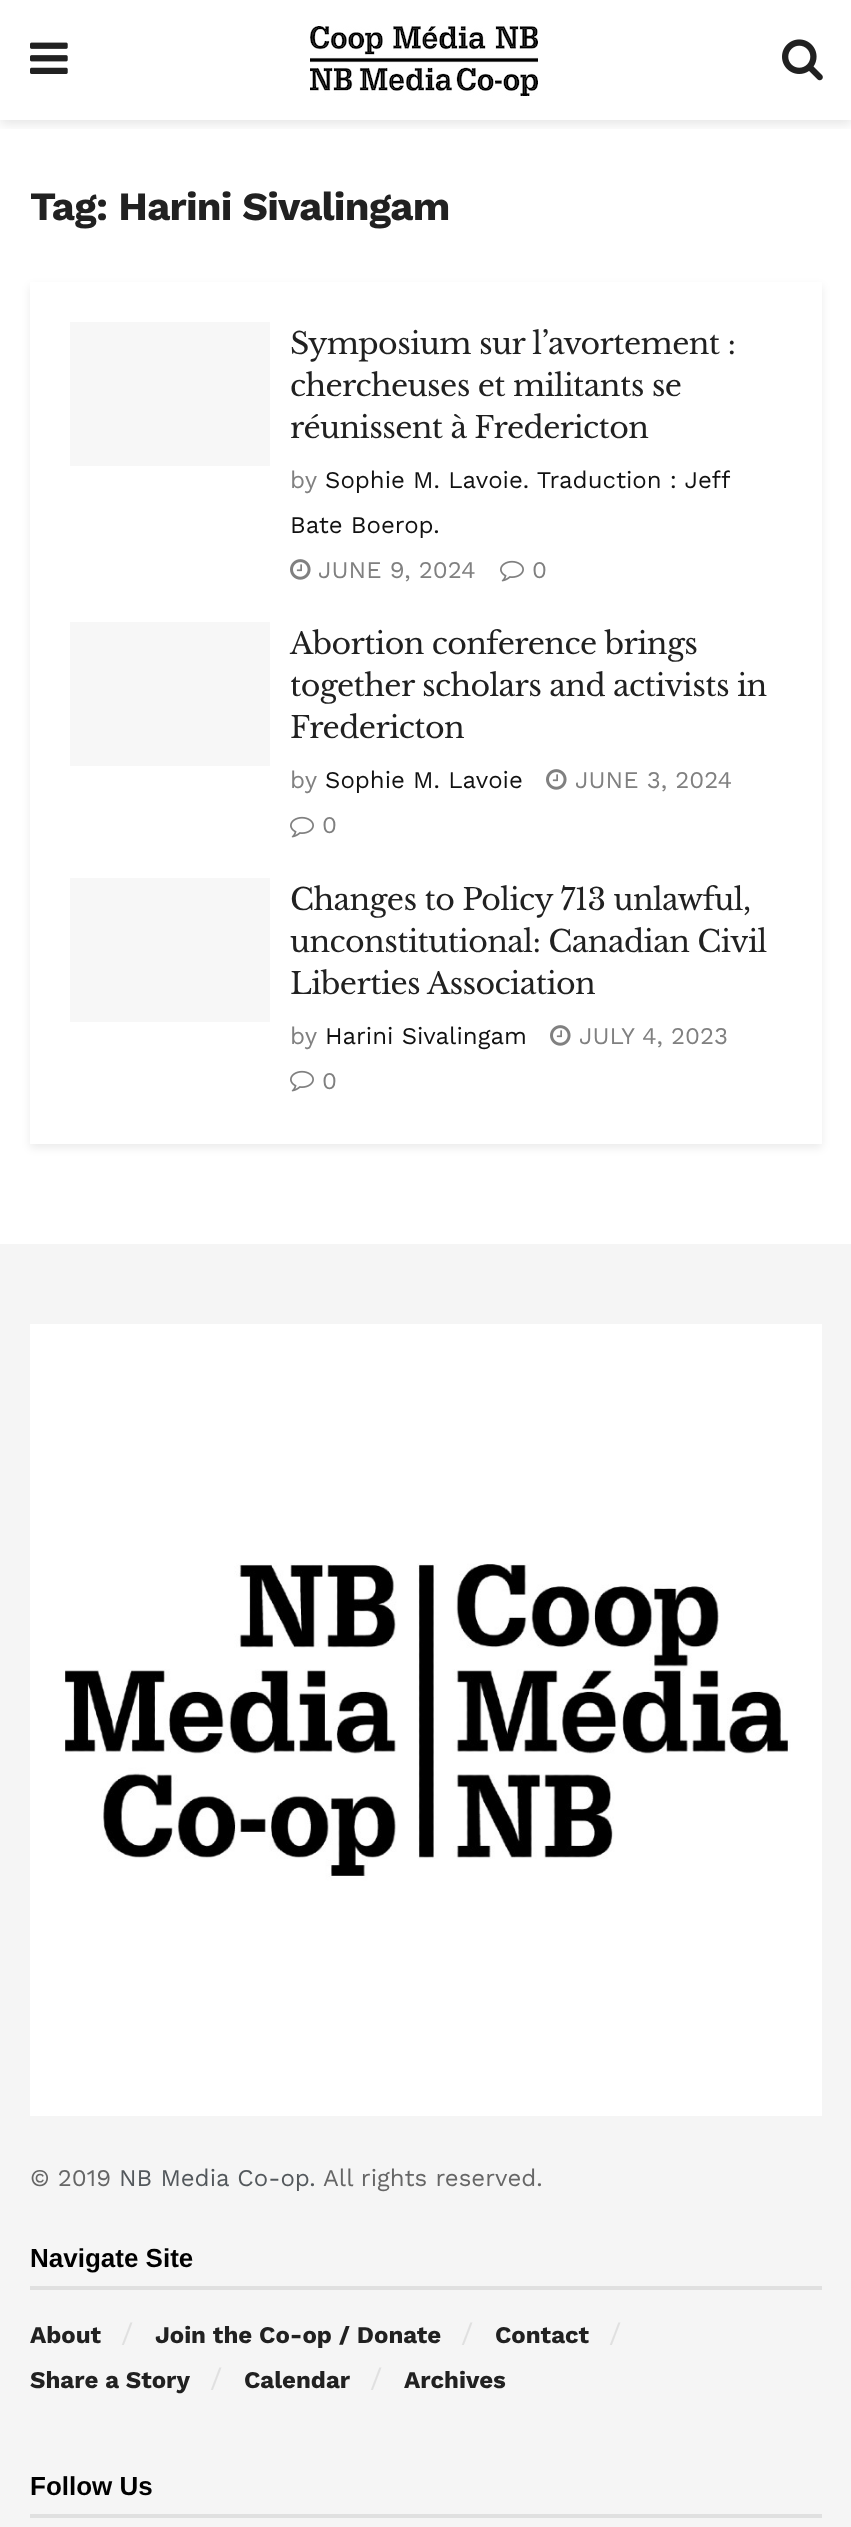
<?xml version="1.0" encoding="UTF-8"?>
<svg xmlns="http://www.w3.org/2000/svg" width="851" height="2527">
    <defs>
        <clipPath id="clip1"><rect x="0" y="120" width="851" height="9"/></clipPath>
        <filter id="blur1" x="-50%" y="-200%" width="200%" height="500%"><feGaussianBlur stdDeviation="6"/></filter>
        <clipPath id="clip2"><path d="M 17 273 H 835 V 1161 H 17 Z M 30 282 H 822 V 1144 H 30 Z" clip-rule="evenodd"/></clipPath>
        <filter id="blur2" x="-50%" y="-200%" width="200%" height="500%"><feGaussianBlur stdDeviation="4"/></filter>
    </defs>
    <rect width="100%" height="100%" fill="#FFFFFF"/>
    <g clip-path="url(#clip1)">
        <rect x="0" y="4" width="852" height="120" fill="#000000" fill-opacity="0.1" filter="url(#blur1)"/>
    </g>
    <image x="30" y="42" width="38" height="32" href="img_01.png"/>
    <image x="310" y="26" width="228" height="70" href="img_02.png"/>
    <image x="782" y="39" width="41" height="42" href="img_03.png"/>
    <text x="30" y="220" font-family="Work Sans" font-size="40" font-weight="700" letter-spacing="-0.8" fill="#212121">Tag: Harini Sivalingam</text>
    <g clip-path="url(#clip2)">
        <rect x="30" y="286" width="792" height="862" fill="#000000" fill-opacity="0.08" filter="url(#blur2)"/>
    </g>
    <rect x="70" y="322" width="200" height="144" fill="#F7F7F7"/>
    <text font-family="Libre Baskerville" font-size="30" letter-spacing="-0.6" fill="#212121">
        <tspan x="290" y="354">Symposium sur l’avortement :</tspan>
        <tspan x="290" y="396">chercheuses et militants se</tspan>
        <tspan x="290" y="438">réunissent à Fredericton</tspan>
    </text>
    <text x="290" y="488" font-family="Work Sans" font-size="24" fill="#808080">by</text>
    <text x="325" y="488" font-family="Work Sans" font-size="24" fill="#111111">Sophie M. Lavoie. Traduction : Jeff</text>
    <text x="290" y="533" font-family="Work Sans" font-size="24" fill="#111111">Bate Boerop.</text>
    <image x="290" y="559" width="21" height="21" href="img_04.png"/>
    <text x="318" y="578" font-family="Work Sans" font-size="24" fill="#808080">JUNE 9, 2024</text>
    <image x="500" y="560" width="24" height="22" href="img_05.png"/>
    <text x="532" y="578" font-family="Work Sans" font-size="24" fill="#808080">0</text>
    <rect x="70" y="622" width="200" height="144" fill="#F7F7F7"/>
    <text font-family="Libre Baskerville" font-size="30" letter-spacing="-0.6" fill="#212121">
        <tspan x="290" y="654">Abortion conference brings</tspan>
        <tspan x="290" y="696">together scholars and activists in</tspan>
        <tspan x="290" y="738">Fredericton</tspan>
    </text>
    <text x="290" y="788" font-family="Work Sans" font-size="24" fill="#808080">by</text>
    <text x="325" y="788" font-family="Work Sans" font-size="24" fill="#111111">Sophie M. Lavoie</text>
    <image x="546" y="769" width="21" height="21" href="img_04.png"/>
    <text x="575" y="788" font-family="Work Sans" font-size="24" fill="#808080">JUNE 3, 2024</text>
    <image x="290" y="816" width="24" height="22" href="img_05.png"/>
    <text x="322" y="833" font-family="Work Sans" font-size="24" fill="#808080">0</text>
    <rect x="70" y="878" width="200" height="144" fill="#F7F7F7"/>
    <text font-family="Libre Baskerville" font-size="30" letter-spacing="-0.6" fill="#212121">
        <tspan x="290" y="910">Changes to Policy 713 unlawful,</tspan>
        <tspan x="290" y="952">unconstitutional: Canadian Civil</tspan>
        <tspan x="290" y="994">Liberties Association</tspan>
    </text>
    <text x="290" y="1044" font-family="Work Sans" font-size="24" fill="#808080">by</text>
    <text x="325" y="1044" font-family="Work Sans" font-size="24" fill="#111111">Harini Sivalingam</text>
    <image x="550" y="1025" width="21" height="21" href="img_04.png"/>
    <text x="579" y="1044" font-family="Work Sans" font-size="24" fill="#808080">JULY 4, 2023</text>
    <image x="290" y="1070" width="24" height="22" href="img_05.png"/>
    <text x="322" y="1089" font-family="Work Sans" font-size="24" fill="#808080">0</text>
    <rect x="0" y="1244" width="851" height="1283" fill="#F5F5F5"/>
    <image x="30" y="1324" width="792" height="792" href="img_06.png"/>
    <text x="30" y="2186" font-family="Work Sans" font-size="24" fill="#666666">© 2019</text>
    <text x="119" y="2186" font-family="Work Sans" font-size="24" fill="#53585C">NB Media Co-op.</text>
    <text x="323" y="2186" font-family="Work Sans" font-size="24" fill="#666666">All rights reserved.</text>
    <rect x="30" y="2286" width="792" height="4" fill="#E0E0E0"/>
    <text x="30" y="2267" font-family="Liberation Sans" font-size="26" font-weight="700" fill="#000000">Navigate Site</text>
    <text x="30" y="2343" font-family="Work Sans" font-size="24" font-weight="700" fill="#212121">About</text>
    <text x="121" y="2343" font-family="Work Sans" font-size="28" fill="#E0E0E0">/</text>
    <text x="155" y="2343" font-family="Work Sans" font-size="24" font-weight="700" fill="#212121">Join the Co-op / Donate</text>
    <text x="461" y="2343" font-family="Work Sans" font-size="28" fill="#E0E0E0">/</text>
    <text x="495" y="2343" font-family="Work Sans" font-size="24" font-weight="700" fill="#212121">Contact</text>
    <text x="609" y="2343" font-family="Work Sans" font-size="28" fill="#E0E0E0">/</text>
    <text x="30" y="2388" font-family="Work Sans" font-size="24" font-weight="700" fill="#212121">Share a Story</text>
    <text x="210" y="2388" font-family="Work Sans" font-size="28" fill="#E0E0E0">/</text>
    <text x="244" y="2388" font-family="Work Sans" font-size="24" font-weight="700" fill="#212121">Calendar</text>
    <text x="370" y="2388" font-family="Work Sans" font-size="28" fill="#E0E0E0">/</text>
    <text x="404" y="2388" font-family="Work Sans" font-size="24" font-weight="700" fill="#212121">Archives</text>
    <rect x="30" y="2514" width="792" height="4" fill="#E0E0E0"/>
    <text x="30" y="2495" font-family="Liberation Sans" font-size="26" font-weight="700" fill="#000000">Follow Us</text>
</svg>
